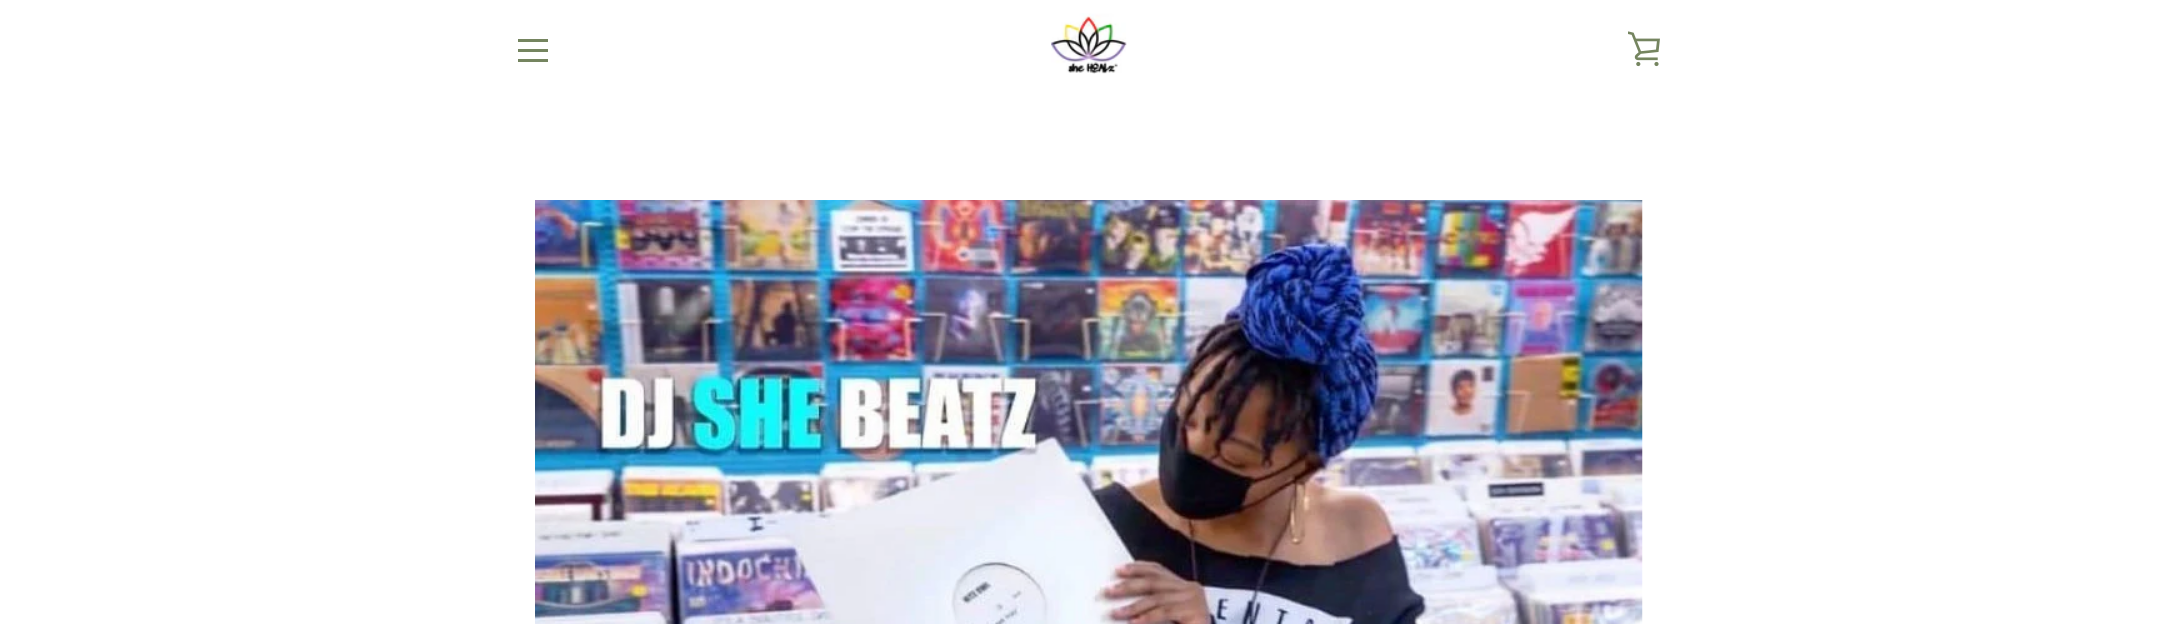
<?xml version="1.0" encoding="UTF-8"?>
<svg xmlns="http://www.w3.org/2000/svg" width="2177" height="624">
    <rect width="100%" height="100%" fill="#FFFFFF"/>
    <rect x="518" y="39" width="30" height="3" fill="#758560"/>
    <rect x="518" y="49" width="30" height="3" fill="#758560"/>
    <rect x="518" y="59" width="30" height="3" fill="#758560"/>
    <image x="1051" y="13" width="76" height="61" href="img_01.png"/>
    <image x="1628" y="31" width="32" height="36" href="img_02.png"/>
    <image x="535" y="200" width="1108" height="424" href="img_03.png"/>
</svg>
